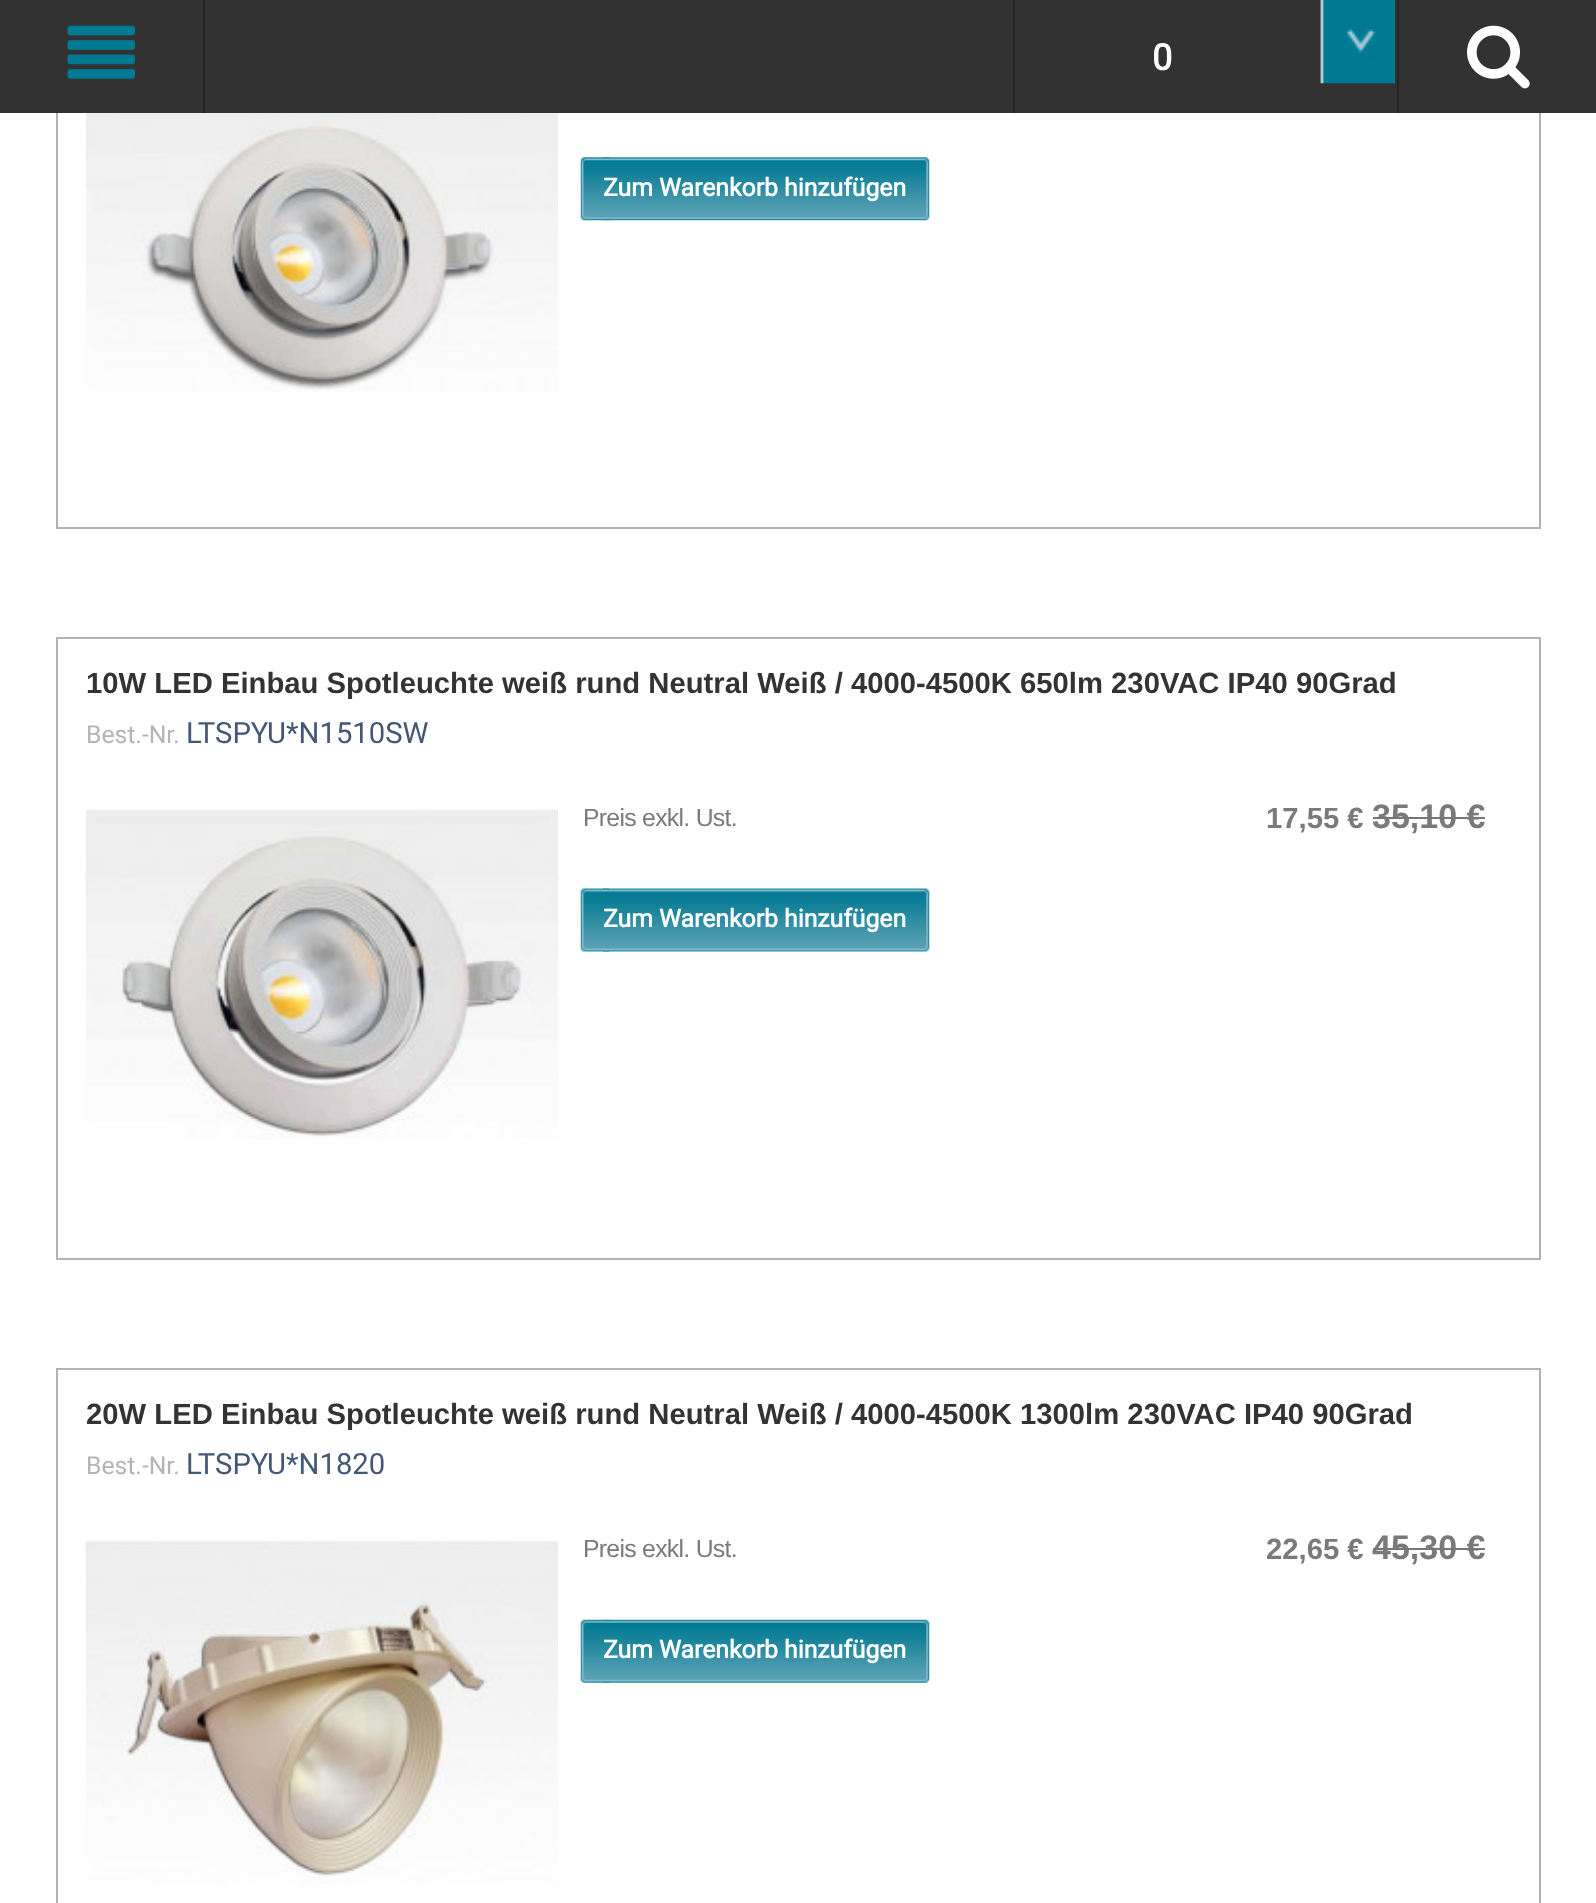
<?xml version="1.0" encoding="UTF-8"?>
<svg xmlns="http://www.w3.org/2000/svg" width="1596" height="1903">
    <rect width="100%" height="100%" fill="#FFFFFF"/>
    <rect x="57" y="-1" width="1483" height="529" fill="none" stroke="#B3B3B3" stroke-width="2"/>
    <rect x="0" y="0" width="1596" height="113" fill="#323232"/>
    <rect x="203" y="0" width="2" height="113" fill="#232323"/>
    <image x="67" y="25" width="68" height="54" href="img_01.png"/>
    <rect x="1397" y="0" width="2" height="113" fill="#232323"/>
    <image x="1467" y="25" width="63" height="64" href="img_02.png"/>
    <rect x="1013" y="0" width="2" height="113" fill="#232323"/>
    <text x="1152" y="70" font-family="Roboto" font-size="36" font-weight="700" fill="#FFFFFF">0</text>
    <image x="1320" y="0" width="75" height="84" href="img_03.png"/>
    <image x="85" y="113" width="473" height="279" href="img_04.png"/>
    <image x="580" y="157" width="30" height="64" href="img_05.png"/>
    <image x="603" y="157" width="327" height="64" href="img_06.png"/>
    <text x="603" y="196" font-family="Roboto" font-size="24.75" font-weight="700" fill="#FFFFFF">Zum Warenkorb hinzufügen</text>
    <rect x="57" y="638" width="1483" height="621" fill="none" stroke="#B3B3B3" stroke-width="2"/>
    <text x="86" y="693" font-family="Liberation Sans" font-size="29.25" font-weight="700" fill="#333333">10W LED Einbau Spotleuchte weiß rund Neutral Weiß / 4000-4500K 650lm 230VAC IP40 90Grad</text>
    <text x="86" y="743" font-family="Roboto" font-size="24.75" fill="#B4B4B4">Best.-Nr.</text>
    <text x="186" y="743" font-family="Roboto" font-size="29.25" fill="#445776">LTSPYU*N1510SW</text>
    <image x="85" y="809" width="473" height="330" href="img_07.png"/>
    <text x="583" y="826" font-family="Liberation Sans" font-size="24.75" letter-spacing="-0.7" fill="#7A7A7A">Preis exkl. Ust.</text>
    <text x="1266" y="828" font-family="Liberation Sans" font-size="29.25" font-weight="700" fill="#7A7A7A">17,55 €</text>
    <text x="1372" y="828" font-family="Liberation Sans" font-size="34" font-weight="700" fill="#7A7A7A">35,10 €</text>
    <rect x="1373" y="817" width="112" height="2" fill="#777777"/>
    <image x="580" y="888" width="30" height="64" href="img_08.png"/>
    <image x="603" y="888" width="327" height="64" href="img_09.png"/>
    <text x="603" y="927" font-family="Roboto" font-size="24.75" font-weight="700" fill="#FFFFFF">Zum Warenkorb hinzufügen</text>
    <rect x="57" y="1369" width="1483" height="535" fill="none" stroke="#B3B3B3" stroke-width="2"/>
    <text x="86" y="1424" font-family="Liberation Sans" font-size="29.25" font-weight="700" fill="#333333">20W LED Einbau Spotleuchte weiß rund Neutral Weiß / 4000-4500K 1300lm 230VAC IP40 90Grad</text>
    <text x="86" y="1474" font-family="Roboto" font-size="24.75" fill="#B4B4B4">Best.-Nr.</text>
    <text x="186" y="1474" font-family="Roboto" font-size="29.25" fill="#445776">LTSPYU*N1820</text>
    <image x="85" y="1540" width="473" height="345" href="img_10.png"/>
    <text x="583" y="1557" font-family="Liberation Sans" font-size="24.75" letter-spacing="-0.7" fill="#7A7A7A">Preis exkl. Ust.</text>
    <text x="1266" y="1559" font-family="Liberation Sans" font-size="29.25" font-weight="700" fill="#7A7A7A">22,65 €</text>
    <text x="1372" y="1559" font-family="Liberation Sans" font-size="34" font-weight="700" fill="#7A7A7A">45,30 €</text>
    <rect x="1373" y="1548" width="112" height="2" fill="#777777"/>
    <image x="580" y="1619" width="30" height="64" href="img_11.png"/>
    <image x="603" y="1619" width="327" height="64" href="img_12.png"/>
    <text x="603" y="1658" font-family="Roboto" font-size="24.75" font-weight="700" fill="#FFFFFF">Zum Warenkorb hinzufügen</text>
</svg>
